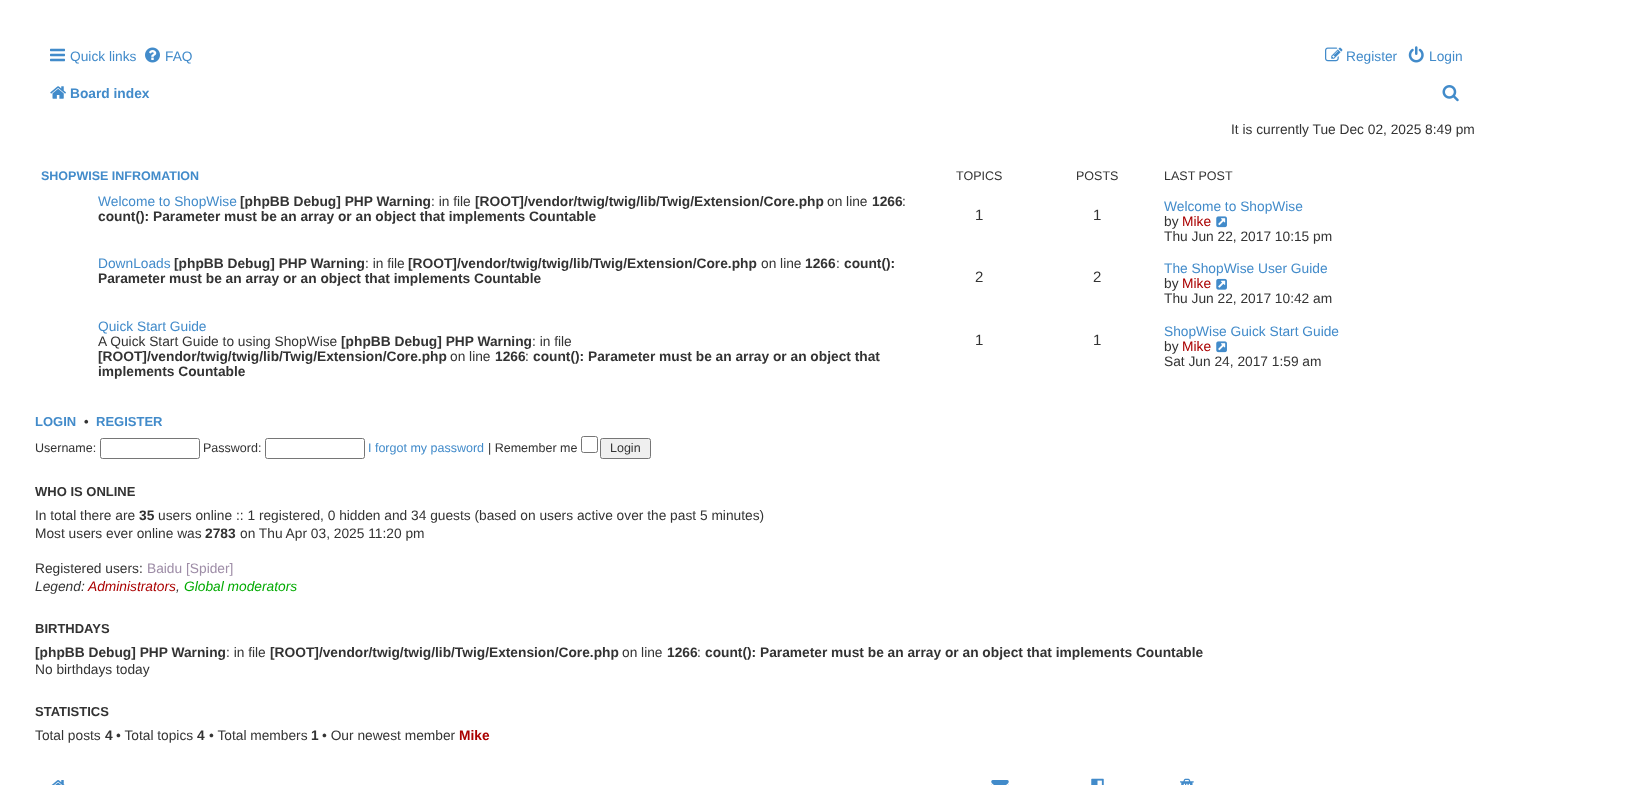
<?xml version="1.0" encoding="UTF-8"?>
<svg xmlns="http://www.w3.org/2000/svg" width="1643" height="785">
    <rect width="100%" height="100%" fill="#FFFFFF"/>
    <image x="50" y="48" width="15" height="14" href="img_01.png"/>
    <text x="70" y="61" font-family="Liberation Sans" font-size="13.75" fill="#428BCA">Quick links</text>
    <image x="145" y="47" width="15" height="16" href="img_02.png"/>
    <text x="165" y="61" font-family="Liberation Sans" font-size="13.75" fill="#428BCA">FAQ</text>
    <image x="1325" y="47" width="18" height="15" href="img_03.png"/>
    <text x="1346" y="61" font-family="Liberation Sans" font-size="13.75" fill="#428BCA">Register</text>
    <image x="1408" y="46" width="16" height="17" href="img_04.png"/>
    <text x="1429" y="61" font-family="Liberation Sans" font-size="13.75" fill="#428BCA">Login</text>
    <image x="50" y="86" width="16" height="13" href="img_05.png"/>
    <text x="70" y="98" font-family="Liberation Sans" font-size="13.75" font-weight="700" fill="#428BCA">Board index</text>
    <image x="1442" y="85" width="17" height="17" href="img_06.png"/>
    <text x="1231" y="134" font-family="Liberation Sans" font-size="13.75" fill="#333333">It is currently Tue Dec 02, 2025 8:49 pm</text>
    <text x="41" y="180" font-family="Liberation Sans" font-size="12.5" font-weight="700" fill="#428BCA">SHOPWISE INFROMATION</text>
    <text x="956" y="180" font-family="Liberation Sans" font-size="12.5" fill="#333333">TOPICS</text>
    <text x="1076" y="180" font-family="Liberation Sans" font-size="12.5" fill="#333333">POSTS</text>
    <text x="1164" y="180" font-family="Liberation Sans" font-size="12.5" fill="#333333">LAST POST</text>
    <text x="98" y="206" font-family="Liberation Sans" font-size="13.75" fill="#428BCA">Welcome to ShopWise</text>
    <text x="240" y="206" font-family="Liberation Sans" font-size="13.75" font-weight="700" fill="#333333">[phpBB Debug] PHP Warning</text>
    <text x="431" y="206" font-family="Liberation Sans" font-size="13.75" fill="#333333">: in file</text>
    <text x="475" y="206" font-family="Liberation Sans" font-size="13.75" font-weight="700" fill="#333333">[ROOT]/vendor/twig/twig/lib/Twig/Extension/Core.php</text>
    <text x="827" y="206" font-family="Liberation Sans" font-size="13.75" fill="#333333">on line</text>
    <text x="872" y="206" font-family="Liberation Sans" font-size="13.75" font-weight="700" fill="#333333">1266</text>
    <text x="902" y="206" font-family="Liberation Sans" font-size="13.75" fill="#333333">:</text>
    <text x="98" y="221" font-family="Liberation Sans" font-size="13.75" font-weight="700" fill="#333333">count(): Parameter must be an array or an object that implements Countable</text>
    <text x="975" y="220" font-family="Liberation Sans" font-size="15" fill="#333333">1</text>
    <text x="1093" y="220" font-family="Liberation Sans" font-size="15" fill="#333333">1</text>
    <text x="1164" y="211" font-family="Liberation Sans" font-size="13.75" fill="#428BCA">Welcome to ShopWise</text>
    <text x="1164" y="226" font-family="Liberation Sans" font-size="13.75" fill="#333333">by</text>
    <text x="1182" y="226" font-family="Liberation Sans" font-size="13.75" fill="#AA0000">Mike</text>
    <image x="1216" y="216" width="11" height="12" href="img_07.png"/>
    <text x="1164" y="241" font-family="Liberation Sans" font-size="13.75" fill="#333333">Thu Jun 22, 2017 10:15 pm</text>
    <text x="98" y="268" font-family="Liberation Sans" font-size="13.75" fill="#428BCA">DownLoads</text>
    <text x="174" y="268" font-family="Liberation Sans" font-size="13.75" font-weight="700" fill="#333333">[phpBB Debug] PHP Warning</text>
    <text x="365" y="268" font-family="Liberation Sans" font-size="13.75" fill="#333333">: in file</text>
    <text x="408" y="268" font-family="Liberation Sans" font-size="13.75" font-weight="700" fill="#333333">[ROOT]/vendor/twig/twig/lib/Twig/Extension/Core.php</text>
    <text x="761" y="268" font-family="Liberation Sans" font-size="13.75" fill="#333333">on line</text>
    <text x="805" y="268" font-family="Liberation Sans" font-size="13.75" font-weight="700" fill="#333333">1266</text>
    <text x="836" y="268" font-family="Liberation Sans" font-size="13.75" fill="#333333">:</text>
    <text x="844" y="268" font-family="Liberation Sans" font-size="13.75" font-weight="700" fill="#333333">count():</text>
    <text x="98" y="283" font-family="Liberation Sans" font-size="13.75" font-weight="700" fill="#333333">Parameter must be an array or an object that implements Countable</text>
    <text x="975" y="282" font-family="Liberation Sans" font-size="15" fill="#333333">2</text>
    <text x="1093" y="282" font-family="Liberation Sans" font-size="15" fill="#333333">2</text>
    <text x="1164" y="273" font-family="Liberation Sans" font-size="13.75" fill="#428BCA">The ShopWise User Guide</text>
    <text x="1164" y="288" font-family="Liberation Sans" font-size="13.75" fill="#333333">by</text>
    <text x="1182" y="288" font-family="Liberation Sans" font-size="13.75" fill="#AA0000">Mike</text>
    <image x="1216" y="278" width="11" height="12" href="img_08.png"/>
    <text x="1164" y="303" font-family="Liberation Sans" font-size="13.75" fill="#333333">Thu Jun 22, 2017 10:42 am</text>
    <text x="98" y="331" font-family="Liberation Sans" font-size="13.75" fill="#428BCA">Quick Start Guide</text>
    <text x="98" y="346" font-family="Liberation Sans" font-size="13.75" fill="#333333">A Quick Start Guide to using ShopWise</text>
    <text x="341" y="346" font-family="Liberation Sans" font-size="13.75" font-weight="700" fill="#333333">[phpBB Debug] PHP Warning</text>
    <text x="532" y="346" font-family="Liberation Sans" font-size="13.75" fill="#333333">: in file</text>
    <text x="98" y="361" font-family="Liberation Sans" font-size="13.75" font-weight="700" fill="#333333">[ROOT]/vendor/twig/twig/lib/Twig/Extension/Core.php</text>
    <text x="450" y="361" font-family="Liberation Sans" font-size="13.75" fill="#333333">on line</text>
    <text x="495" y="361" font-family="Liberation Sans" font-size="13.75" font-weight="700" fill="#333333">1266</text>
    <text x="525" y="361" font-family="Liberation Sans" font-size="13.75" fill="#333333">:</text>
    <text x="533" y="361" font-family="Liberation Sans" font-size="13.75" font-weight="700" fill="#333333">count(): Parameter must be an array or an object that</text>
    <text x="98" y="376" font-family="Liberation Sans" font-size="13.75" font-weight="700" fill="#333333">implements Countable</text>
    <text x="975" y="345" font-family="Liberation Sans" font-size="15" fill="#333333">1</text>
    <text x="1093" y="345" font-family="Liberation Sans" font-size="15" fill="#333333">1</text>
    <text x="1164" y="336" font-family="Liberation Sans" font-size="13.75" fill="#428BCA">ShopWise Guick Start Guide</text>
    <text x="1164" y="351" font-family="Liberation Sans" font-size="13.75" fill="#333333">by</text>
    <text x="1182" y="351" font-family="Liberation Sans" font-size="13.75" fill="#AA0000">Mike</text>
    <image x="1216" y="341" width="11" height="12" href="img_07.png"/>
    <text x="1164" y="366" font-family="Liberation Sans" font-size="13.75" fill="#333333">Sat Jun 24, 2017 1:59 am</text>
    <text x="35" y="426" font-family="Liberation Sans" font-size="13" font-weight="700" fill="#428BCA">LOGIN</text>
    <text x="84" y="426" font-family="Liberation Sans" font-size="13" font-weight="700" fill="#333333">•</text>
    <text x="96" y="426" font-family="Liberation Sans" font-size="13" font-weight="700" fill="#428BCA">REGISTER</text>
    <text x="35" y="452" font-family="Liberation Sans" font-size="12.5" fill="#333333">Username:</text>
    <rect x="100.5" y="438.5" width="99" height="20" rx="2" fill="none" stroke="#767676"/>
    <text x="203" y="452" font-family="Liberation Sans" font-size="12.5" fill="#333333">Password:</text>
    <rect x="265.5" y="438.5" width="99" height="20" rx="2" fill="none" stroke="#767676"/>
    <text x="368" y="452" font-family="Liberation Sans" font-size="12.5" fill="#428BCA">I forgot my password</text>
    <text x="488" y="452" font-family="Liberation Sans" font-size="12.5" fill="#333333">| Remember me</text>
    <rect x="581.5" y="436.5" width="16" height="16" rx="2" fill="none" stroke="#767676"/>
    <rect x="600.5" y="438.5" width="50" height="20" rx="2" fill="#EFEFEF" stroke="#767676"/>
    <text x="610" y="452" font-family="Liberation Sans" font-size="12.5" fill="#333333">Login</text>
    <text x="35" y="496" font-family="Liberation Sans" font-size="13" font-weight="700" fill="#333333">WHO IS ONLINE</text>
    <text x="35" y="520" font-family="Liberation Sans" font-size="13.75" fill="#333333">In total there are</text>
    <text x="139" y="520" font-family="Liberation Sans" font-size="13.75" font-weight="700" fill="#333333">35</text>
    <text x="158" y="520" font-family="Liberation Sans" font-size="13.75" fill="#333333">users online :: 1 registered, 0 hidden and 34 guests (based on users active over the past 5 minutes)</text>
    <text x="35" y="538" font-family="Liberation Sans" font-size="13.75" fill="#333333">Most users ever online was</text>
    <text x="205" y="538" font-family="Liberation Sans" font-size="13.75" font-weight="700" fill="#333333">2783</text>
    <text x="240" y="538" font-family="Liberation Sans" font-size="13.75" fill="#333333">on Thu Apr 03, 2025 11:20 pm</text>
    <text x="35" y="573" font-family="Liberation Sans" font-size="13.75" fill="#333333">Registered users:</text>
    <text x="147" y="573" font-family="Liberation Sans" font-size="13.75" fill="#9E8DA7">Baidu [Spider]</text>
    <text x="35" y="591" font-family="Liberation Sans" font-size="13.75" font-style="italic" fill="#333333">Legend:</text>
    <text x="88" y="591" font-family="Liberation Sans" font-size="13.75" font-style="italic" fill="#AA0000">Administrators</text>
    <text x="176" y="591" font-family="Liberation Sans" font-size="13.75" font-style="italic" fill="#333333">,</text>
    <text x="184" y="591" font-family="Liberation Sans" font-size="13.75" font-style="italic" fill="#00AA00">Global moderators</text>
    <text x="35" y="633" font-family="Liberation Sans" font-size="13" font-weight="700" fill="#333333">BIRTHDAYS</text>
    <text x="35" y="657" font-family="Liberation Sans" font-size="13.75" font-weight="700" fill="#333333">[phpBB Debug] PHP Warning</text>
    <text x="226" y="657" font-family="Liberation Sans" font-size="13.75" fill="#333333">: in file</text>
    <text x="270" y="657" font-family="Liberation Sans" font-size="13.75" font-weight="700" fill="#333333">[ROOT]/vendor/twig/twig/lib/Twig/Extension/Core.php</text>
    <text x="622" y="657" font-family="Liberation Sans" font-size="13.75" fill="#333333">on line</text>
    <text x="667" y="657" font-family="Liberation Sans" font-size="13.75" font-weight="700" fill="#333333">1266</text>
    <text x="697" y="657" font-family="Liberation Sans" font-size="13.75" fill="#333333">:</text>
    <text x="705" y="657" font-family="Liberation Sans" font-size="13.75" font-weight="700" fill="#333333">count(): Parameter must be an array or an object that implements Countable</text>
    <text x="35" y="674" font-family="Liberation Sans" font-size="13.75" fill="#333333">No birthdays today</text>
    <text x="35" y="716" font-family="Liberation Sans" font-size="13" font-weight="700" fill="#333333">STATISTICS</text>
    <text x="35" y="740" font-family="Liberation Sans" font-size="13.75" fill="#333333">Total posts</text>
    <text x="105" y="740" font-family="Liberation Sans" font-size="13.75" font-weight="700" fill="#333333">4</text>
    <text x="116" y="740" font-family="Liberation Sans" font-size="13.75" fill="#333333">• Total topics</text>
    <text x="197" y="740" font-family="Liberation Sans" font-size="13.75" font-weight="700" fill="#333333">4</text>
    <text x="209" y="740" font-family="Liberation Sans" font-size="13.75" fill="#333333">• Total members</text>
    <text x="311" y="740" font-family="Liberation Sans" font-size="13.75" font-weight="700" fill="#333333">1</text>
    <text x="322" y="740" font-family="Liberation Sans" font-size="13.75" fill="#333333">• Our newest member</text>
    <text x="459" y="740" font-family="Liberation Sans" font-size="13.75" font-weight="700" fill="#AA0000">Mike</text>
    <image x="51" y="780" width="14" height="5" href="img_09.png"/>
    <image x="991" y="780" width="18" height="5" href="img_10.png"/>
    <image x="1091" y="778" width="13" height="7" href="img_11.png"/>
    <image x="1180" y="778" width="14" height="7" href="img_12.png"/>
</svg>
